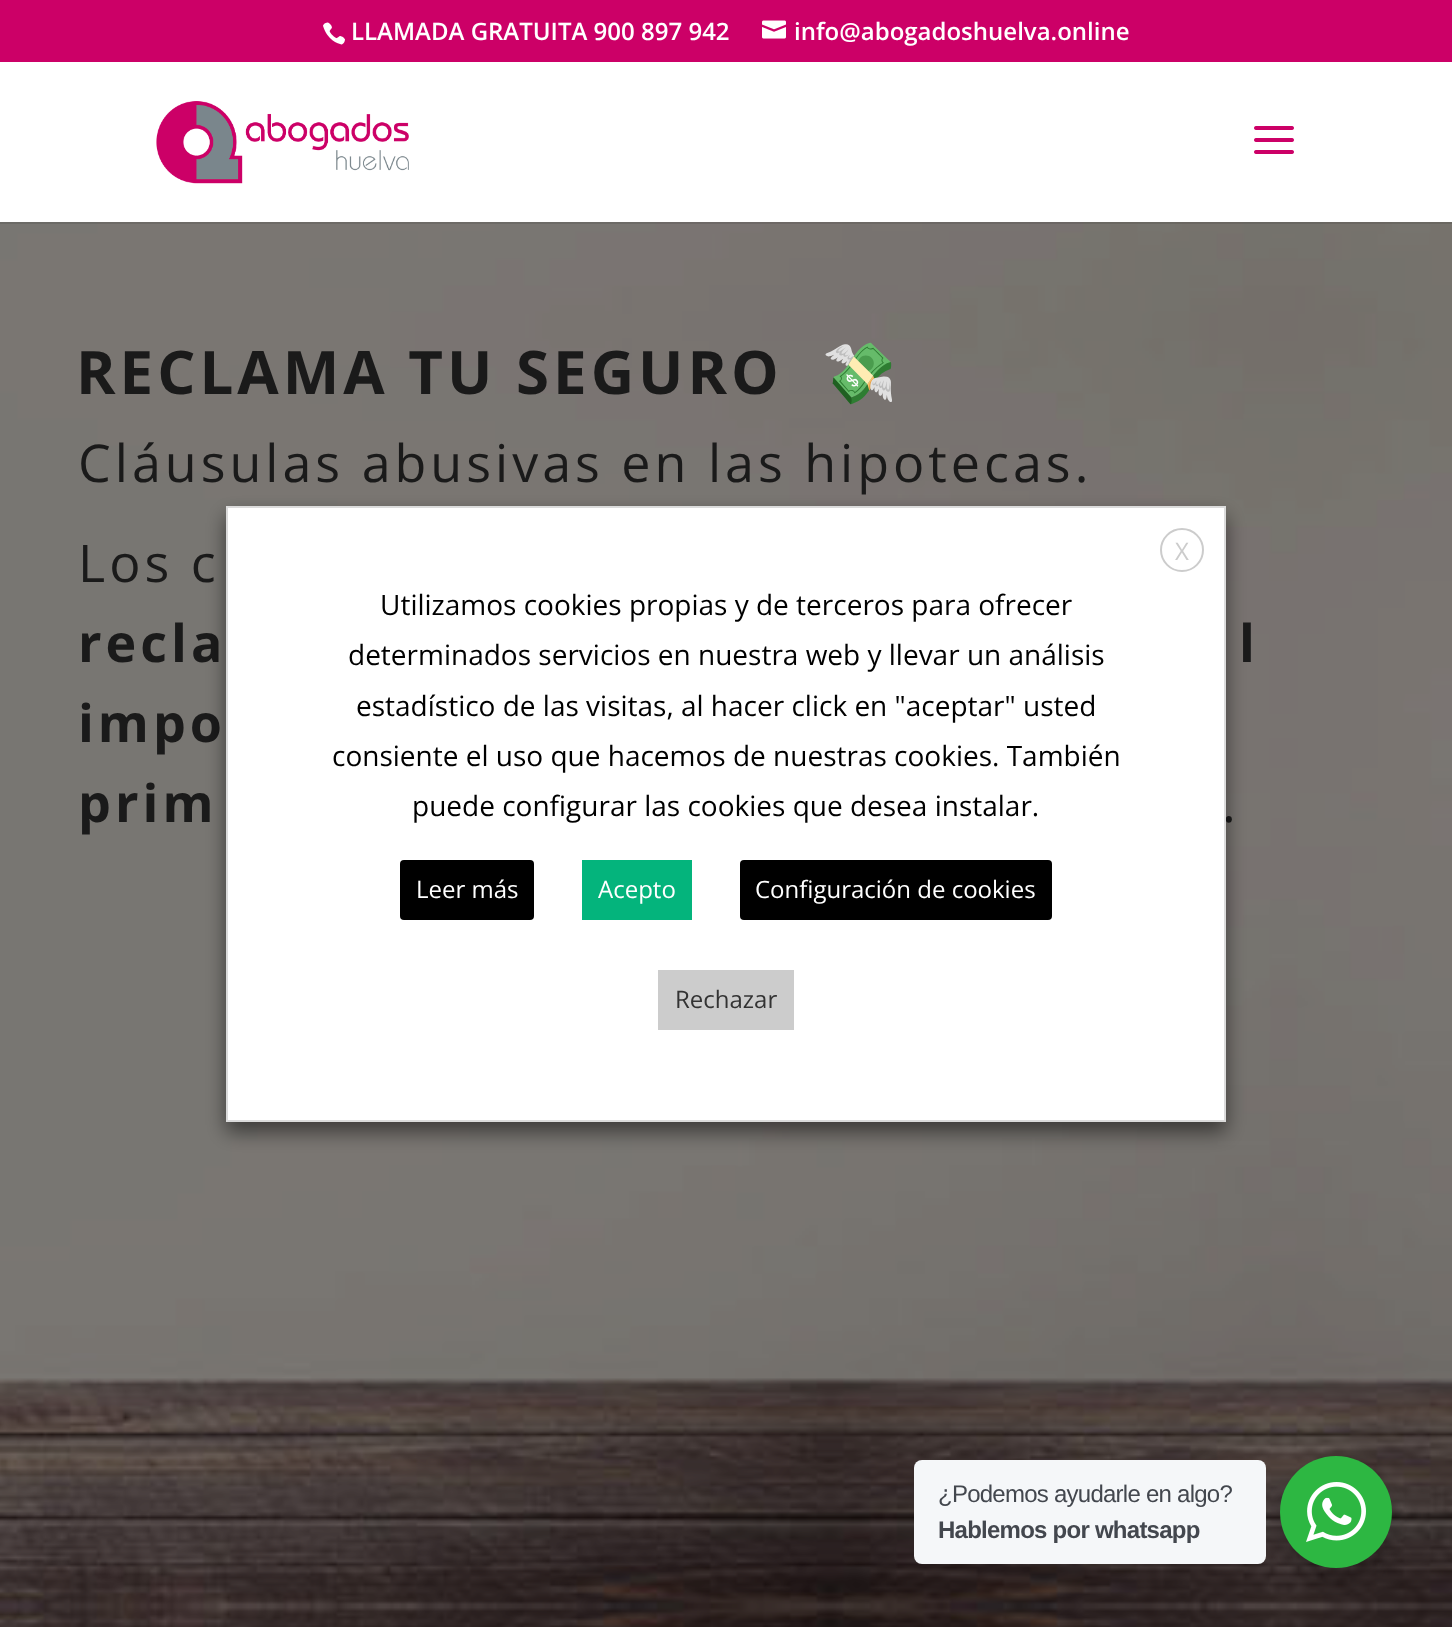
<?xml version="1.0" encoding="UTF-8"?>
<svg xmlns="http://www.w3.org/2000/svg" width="1452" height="1627">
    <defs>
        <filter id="blur1" x="-50%" y="-200%" width="200%" height="500%"><feGaussianBlur stdDeviation="10"/></filter>
        <filter id="blur2" x="-50%" y="-200%" width="200%" height="500%"><feGaussianBlur stdDeviation="8"/></filter>
    </defs>
    <rect width="100%" height="100%" fill="#FFFFFF"/>
    <rect x="0" y="0" width="1452" height="62" fill="#CC0067"/>
    <image x="323" y="22" width="22" height="23" href="img_01.png"/>
    <text x="351" y="40" font-family="Open Sans" font-size="24" font-weight="600" fill="#FFFFFF">LLAMADA GRATUITA 900 897 942</text>
    <image x="762" y="20" width="24" height="19" href="img_02.png"/>
    <text x="794" y="40" font-family="Open Sans" font-size="24" font-weight="600" fill="#FFFFFF">info@abogadoshuelva.online</text>
    <image x="0" y="222" width="1452" height="1405" href="img_05.png"/>
    <rect x="0" y="222" width="1452" height="2" fill="#000000" fill-opacity="0.1"/>
    <image x="156" y="101" width="253" height="83" href="img_03.png"/>
    <image x="1254" y="126" width="40" height="28" href="img_04.png"/>
    <text x="76" y="394" font-family="Open Sans" font-size="60" font-weight="700" letter-spacing="4" fill="#1A1A1A">RECLAMA TU SEGURO</text>
    <text x="822" y="394" font-family="Noto Color Emoji" font-size="60" font-weight="700" letter-spacing="4" fill="#1A1A1A">💸</text>
    <text font-family="Open Sans" font-size="52" letter-spacing="4" fill="#1A1A1A">
        <tspan x="78" y="482">Cláusulas abusivas en las hipotecas.</tspan>
        <tspan x="78" y="582">Los c</tspan>
    </text>
    <text x="78" y="662" font-family="Open Sans" font-size="52" font-weight="700" letter-spacing="4" fill="#1A1A1A">recla</text>
    <text x="1239" y="662" font-family="Open Sans" font-size="52" font-weight="700" letter-spacing="4" fill="#1A1A1A">l</text>
    <text font-family="Open Sans" font-size="52" font-weight="700" letter-spacing="4" fill="#1A1A1A">
        <tspan x="78" y="742">impo</tspan>
        <tspan x="78" y="822">prim</tspan>
    </text>
    <text x="1222" y="822" font-family="Open Sans" font-size="52" letter-spacing="4" fill="#1A1A1A">.</text>
    <rect x="226" y="516" width="1000" height="616" fill="#000000" fill-opacity="0.5" filter="url(#blur1)"/>
    <rect x="227" y="507" width="998" height="614" fill="#FFFFFF" stroke="#DBDBDB" stroke-width="2"/>
    <circle cx="1182" cy="550" r="21" fill="none" stroke="#CCCCCC" stroke-width="2"/>
    <text x="1175" y="560" font-family="Open Sans" font-size="24" fill="#CCCCCC">X</text>
    <text x="380" y="615" font-family="Open Sans" font-size="28" fill="#000000">Utilizamos cookies propias y de terceros para ofrecer</text>
    <text x="348" y="665" font-family="Open Sans" font-size="28" fill="#000000">determinados servicios en nuestra web y llevar un análisis</text>
    <text x="356" y="716" font-family="Open Sans" font-size="28" fill="#000000">estadístico de las visitas, al hacer click en "aceptar" usted</text>
    <text x="332" y="766" font-family="Open Sans" font-size="28" fill="#000000">consiente el uso que hacemos de nuestras cookies. También</text>
    <text x="412" y="816" font-family="Open Sans" font-size="28" fill="#000000">puede configurar las cookies que desea instalar.</text>
    <rect x="400" y="860" width="134" height="60" rx="4" fill="#000000"/>
    <text x="416" y="898" font-family="Open Sans" font-size="24" fill="#FFFFFF">Leer más</text>
    <rect x="582" y="860" width="110" height="60" fill="#04B47C"/>
    <text x="598" y="898" font-family="Open Sans" font-size="24" fill="#FFFFFF">Acepto</text>
    <rect x="740" y="860" width="312" height="60" rx="4" fill="#000000"/>
    <text x="755" y="898" font-family="Open Sans" font-size="24" fill="#FFFFFF">Configuración de cookies</text>
    <rect x="658" y="970" width="136" height="60" fill="#CCCCCC"/>
    <text x="675" y="1008" font-family="Open Sans" font-size="24" fill="#333333">Rechazar</text>
    <rect x="1276" y="1464" width="120" height="120" rx="60" fill="#000000" fill-opacity="0.14" filter="url(#blur2)"/>
    <rect x="914" y="1460" width="352" height="104" rx="8" fill="#F5F7F9"/>
    <text x="938" y="1502" font-family="Liberation Sans" font-size="24" letter-spacing="-0.75" fill="#43474E">¿Podemos ayudarle en algo?</text>
    <text x="938" y="1538" font-family="Liberation Sans" font-size="24" font-weight="700" letter-spacing="-0.75" fill="#43474E">Hablemos por whatsapp</text>
    <circle cx="1336" cy="1512" r="56" fill="#2DB742"/>
    <image x="1306" y="1482" width="60" height="60" href="img_06.png"/>
</svg>
